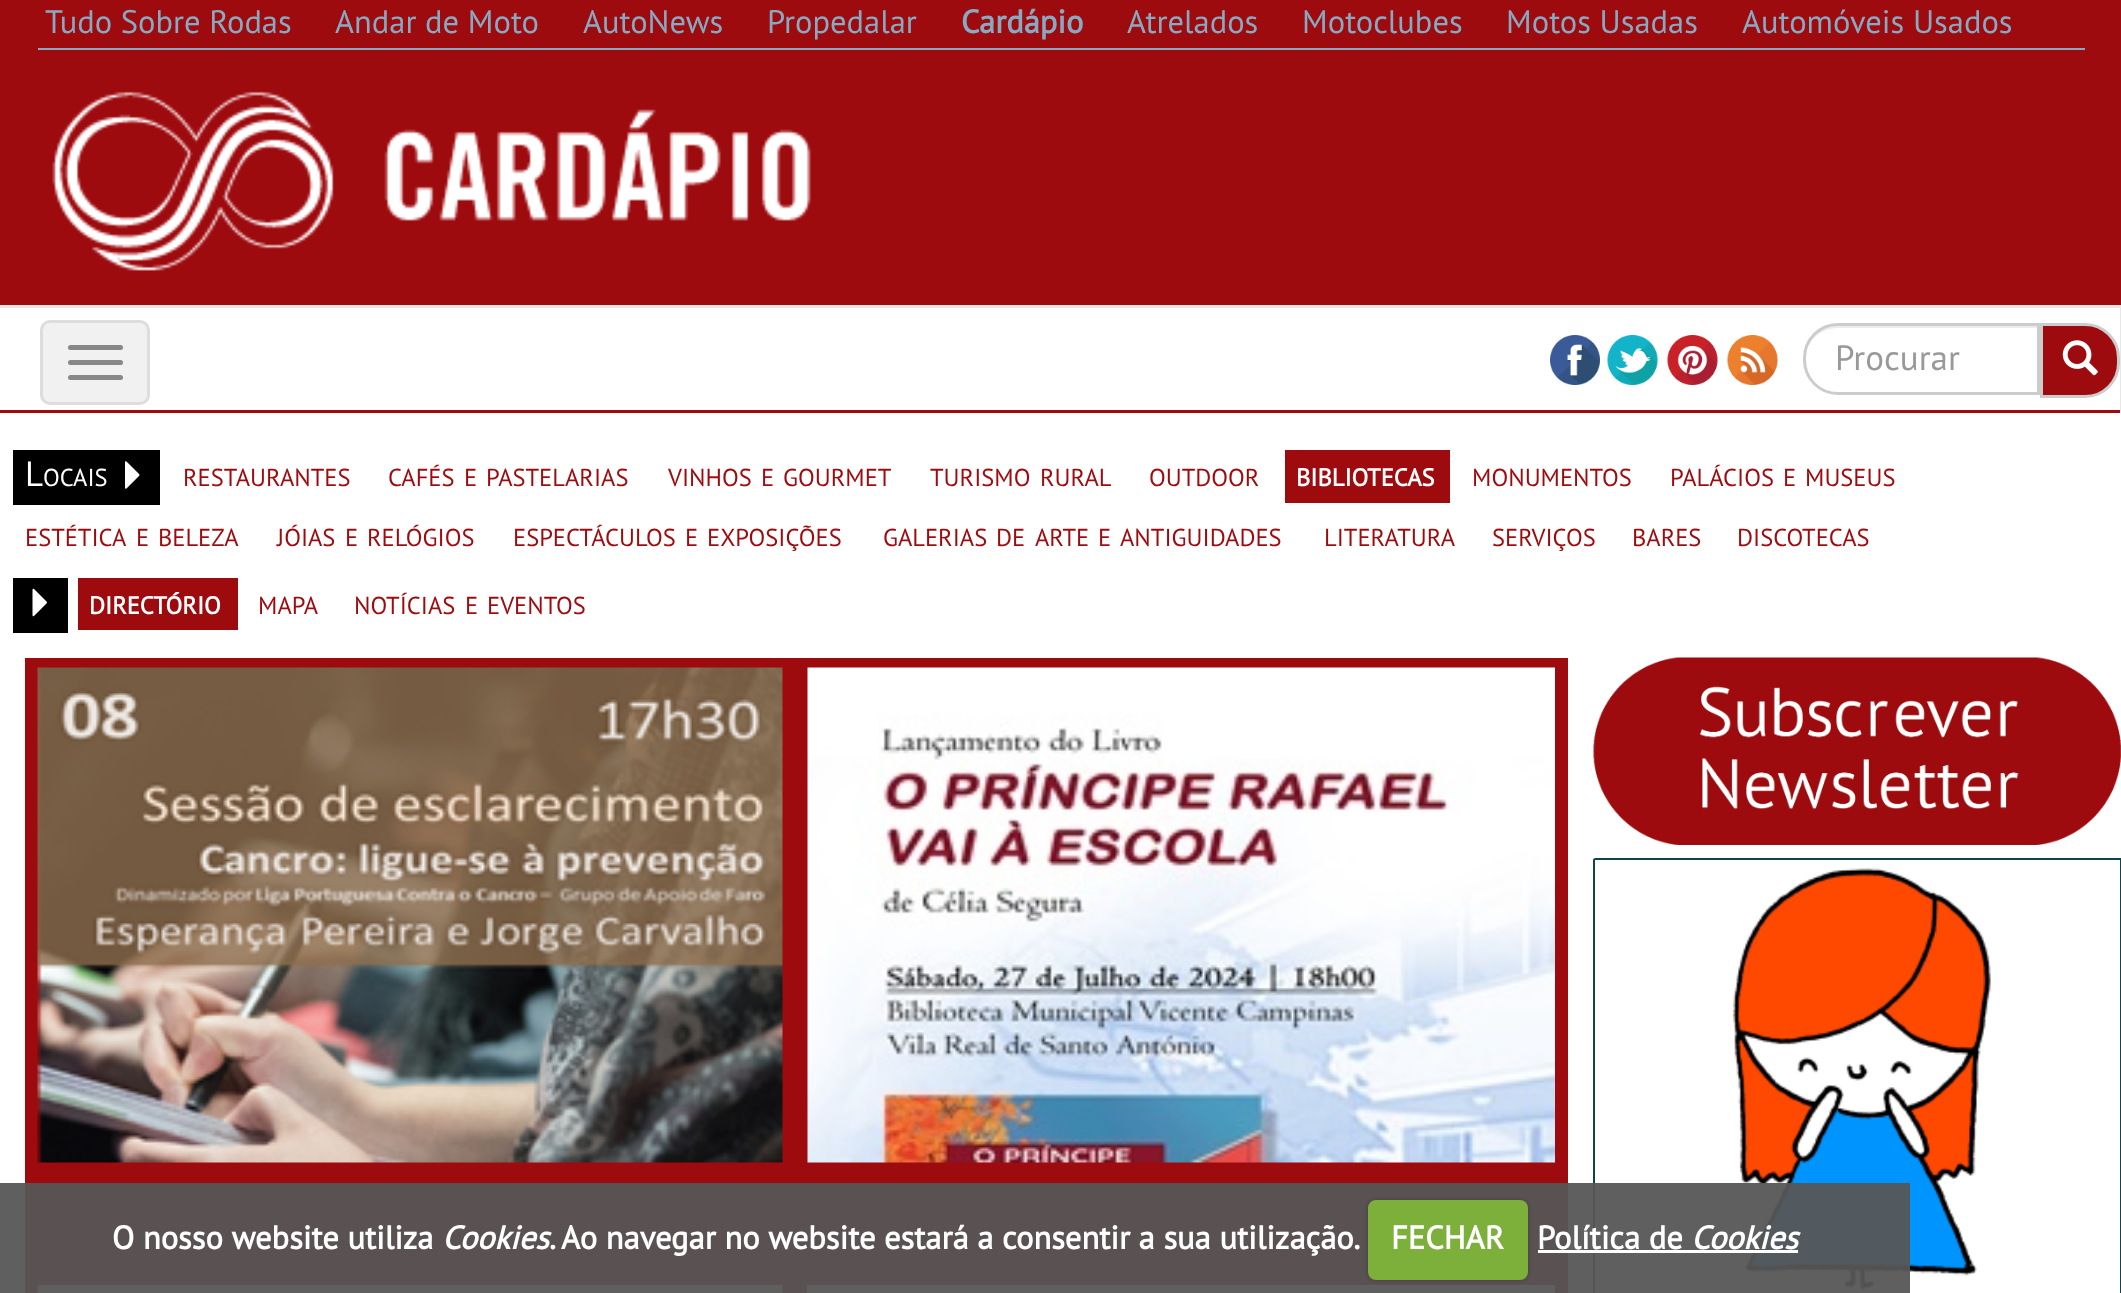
<?xml version="1.0" encoding="UTF-8"?>
<svg xmlns="http://www.w3.org/2000/svg" width="2121" height="1293">
    <defs>
        <filter id="blur1" x="-50%" y="-200%" width="200%" height="500%"><feGaussianBlur stdDeviation="2.5"/></filter>
    </defs>
    <rect width="100%" height="100%" fill="#FFFFFF"/>
    <rect x="0" y="0" width="2121" height="305" fill="#9E0B0F"/>
    <image x="52" y="91" width="759" height="180" href="img_01.png"/>
    <rect x="38" y="48" width="2047" height="2" fill="#87AAC3"/>
    <text x="45" y="33" font-family="PT Sans" font-size="32.5" fill="#87AAC3">Tudo Sobre Rodas</text>
    <text x="335" y="33" font-family="PT Sans" font-size="32.5" fill="#87AAC3">Andar de Moto</text>
    <text x="583" y="33" font-family="PT Sans" font-size="32.5" fill="#87AAC3">AutoNews</text>
    <text x="767" y="33" font-family="PT Sans" font-size="32.5" fill="#87AAC3">Propedalar</text>
    <text x="961" y="33" font-family="PT Sans" font-size="32.5" font-weight="700" fill="#87AAC3">Cardápio</text>
    <text x="1127" y="33" font-family="PT Sans" font-size="32.5" fill="#87AAC3">Atrelados</text>
    <text x="1302" y="33" font-family="PT Sans" font-size="32.5" fill="#87AAC3">Motoclubes</text>
    <text x="1506" y="33" font-family="PT Sans" font-size="32.5" fill="#87AAC3">Motos Usadas</text>
    <text x="1742" y="33" font-family="PT Sans" font-size="32.5" fill="#87AAC3">Automóveis Usados</text>
    <rect x="2120" y="410" width="1" height="1" fill="#E7E7E7"/>
    <rect x="-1.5" y="306.5" width="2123" height="102" fill="none" stroke="#E7E7E7" stroke-width="3"/>
    <rect x="0" y="407" width="2120" height="3" fill="#FFFFFF"/>
    <rect x="0" y="410" width="2120" height="3" fill="#9E0B0F"/>
    <rect x="41.5" y="321.5" width="107" height="82" rx="8.5" fill="#F1F1F1" stroke="#DDDDDD" stroke-width="3"/>
    <rect x="68" y="345" width="55" height="5" rx="2.5" fill="#888888"/>
    <rect x="68" y="360" width="55" height="5" rx="2.5" fill="#888888"/>
    <rect x="68" y="375" width="55" height="5" rx="2.5" fill="#888888"/>
    <image x="1550" y="335" width="50" height="50" href="img_02.png"/>
    <image x="1607" y="335" width="51" height="50" href="img_03.png"/>
    <image x="1667" y="335" width="51" height="50" href="img_04.png"/>
    <image x="1727" y="335" width="51" height="50" href="img_05.png"/>
    <path d="M 1838 328 H 2038 V 325 H 1838 C 1820 325 1805 340 1805 358 V 360 C 1805 342 1820 328 1838 328 Z" fill="#ECECEC"/>
    <path d="M 1838 324.5 H 2038.5 V 393.5 H 1838 C 1819.5 393.5 1804.5 378.5 1804.5 360 V 358 C 1804.5 339.5 1819.5 324.5 1838 324.5 Z" fill="none" stroke="#CCCCCC" stroke-width="3"/>
    <text x="1835" y="370" font-family="PT Sans" font-size="35" fill="#999999">Procurar</text>
    <path d="M 2041.5 324.5 H 2085 C 2103.5 324.5 2118.5 339.5 2118.5 358 V 363 C 2118.5 381.5 2103.5 396.5 2085 396.5 H 2041.5 Z" fill="#9E0B0F" stroke="#CCCCCC" stroke-width="3"/>
    <image x="2062" y="340" width="36" height="36" href="img_06.png"/>
    <rect x="13" y="450" width="147" height="55" fill="#000000"/>
    <text x="25" y="486" font-family="PT Sans" font-size="35" fill="#FFFFFF">L</text>
    <text x="43" y="486" font-family="PT Sans" font-size="24.5" fill="#FFFFFF">OCAIS</text>
    <image x="125" y="461" width="15" height="28" href="img_07.png"/>
    <text x="183" y="486" font-family="PT Sans" font-size="24.5" fill="#9E0B0F">RESTAURANTES</text>
    <text x="388" y="486" font-family="PT Sans" font-size="24.5" fill="#9E0B0F">CAFÉS</text>
    <text x="464" y="486" font-family="PT Sans" font-size="24.5" fill="#9E0B0F">E</text>
    <text x="486" y="486" font-family="PT Sans" font-size="24.5" fill="#9E0B0F">PASTELARIAS</text>
    <text x="668" y="486" font-family="PT Sans" font-size="24.5" fill="#9E0B0F">VINHOS</text>
    <text x="761" y="486" font-family="PT Sans" font-size="24.5" fill="#9E0B0F">E</text>
    <text x="783" y="486" font-family="PT Sans" font-size="24.5" fill="#9E0B0F">GOURMET</text>
    <text x="930" y="486" font-family="PT Sans" font-size="24.5" fill="#9E0B0F">TURISMO</text>
    <text x="1040" y="486" font-family="PT Sans" font-size="24.5" fill="#9E0B0F">RURAL</text>
    <text x="1149" y="486" font-family="PT Sans" font-size="24.5" fill="#9E0B0F">OUTDOOR</text>
    <rect x="1285" y="450" width="165" height="53" fill="#9E0B0F"/>
    <text x="1296" y="486" font-family="PT Sans" font-size="24.5" font-weight="700" fill="#FFFFFF">BIBLIOTECAS</text>
    <text x="1472" y="486" font-family="PT Sans" font-size="24.5" fill="#9E0B0F">MONUMENTOS</text>
    <text x="1670" y="486" font-family="PT Sans" font-size="24.5" fill="#9E0B0F">PALÁCIOS</text>
    <text x="1783" y="486" font-family="PT Sans" font-size="24.5" fill="#9E0B0F">E</text>
    <text x="1805" y="486" font-family="PT Sans" font-size="24.5" fill="#9E0B0F">MUSEUS</text>
    <text x="25" y="546" font-family="PT Sans" font-size="24.5" fill="#9E0B0F">ESTÉTICA</text>
    <text x="136" y="546" font-family="PT Sans" font-size="24.5" fill="#9E0B0F">E</text>
    <text x="158" y="546" font-family="PT Sans" font-size="24.5" fill="#9E0B0F">BELEZA</text>
    <text x="277" y="546" font-family="PT Sans" font-size="24.5" fill="#9E0B0F">JÓIAS</text>
    <text x="345" y="546" font-family="PT Sans" font-size="24.5" fill="#9E0B0F">E</text>
    <text x="367" y="546" font-family="PT Sans" font-size="24.5" fill="#9E0B0F">RELÓGIOS</text>
    <text x="513" y="546" font-family="PT Sans" font-size="24.5" fill="#9E0B0F">ESPECTÁCULOS</text>
    <text x="685" y="546" font-family="PT Sans" font-size="24.5" fill="#9E0B0F">E</text>
    <text x="707" y="546" font-family="PT Sans" font-size="24.5" fill="#9E0B0F">EXPOSIÇÕES</text>
    <text x="883" y="546" font-family="PT Sans" font-size="24.5" fill="#9E0B0F">GALERIAS</text>
    <text x="996" y="546" font-family="PT Sans" font-size="24.5" fill="#9E0B0F">DE</text>
    <text x="1035" y="546" font-family="PT Sans" font-size="24.5" fill="#9E0B0F">ARTE</text>
    <text x="1098" y="546" font-family="PT Sans" font-size="24.5" fill="#9E0B0F">E</text>
    <text x="1120" y="546" font-family="PT Sans" font-size="24.5" fill="#9E0B0F">ANTIGUIDADES</text>
    <text x="1324" y="546" font-family="PT Sans" font-size="24.5" fill="#9E0B0F">LITERATURA</text>
    <text x="1492" y="546" font-family="PT Sans" font-size="24.5" fill="#9E0B0F">SERVIÇOS</text>
    <text x="1632" y="546" font-family="PT Sans" font-size="24.5" fill="#9E0B0F">BARES</text>
    <text x="1737" y="546" font-family="PT Sans" font-size="24.5" fill="#9E0B0F">DISCOTECAS</text>
    <rect x="13" y="578" width="55" height="55" fill="#000000"/>
    <image x="32" y="588" width="15" height="29" href="img_08.png"/>
    <rect x="78" y="578" width="160" height="52" fill="#9E0B0F"/>
    <text x="89" y="614" font-family="PT Sans" font-size="24.5" font-weight="700" fill="#FFFFFF">DIRECTÓRIO</text>
    <text x="258" y="614" font-family="PT Sans" font-size="24.5" fill="#9E0B0F">MAPA</text>
    <text x="354" y="614" font-family="PT Sans" font-size="24.5" fill="#9E0B0F">NOTÍCIAS</text>
    <text x="465" y="614" font-family="PT Sans" font-size="24.5" fill="#9E0B0F">E</text>
    <text x="487" y="614" font-family="PT Sans" font-size="24.5" fill="#9E0B0F">EVENTOS</text>
    <rect x="25" y="658" width="1543" height="635" fill="#9E0B0F"/>
    <image x="37" y="667" width="746" height="496" href="img_09.png"/>
    <image x="807" y="667" width="748" height="496" href="img_10.png"/>
    <image x="37" y="1285" width="746" height="8" href="img_11.png"/>
    <rect x="807" y="1285" width="748" height="8" fill="#FFFFFF"/>
    <image x="1593" y="657" width="528" height="188" href="img_12.png"/>
    <rect x="1594.5" y="859.5" width="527" height="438" rx="1" fill="none" stroke="#0E444E" stroke-width="3"/>
    <image x="1595" y="860" width="525" height="433" href="img_13.png"/>
    <rect x="0" y="1183" width="1910" height="110" fill="#565656" fill-opacity="0.95"/>
    <text x="112" y="1249" font-family="PT Sans" font-size="32.5" font-weight="700" fill="#FFFFFF">O nosso website utiliza</text>
    <text x="442" y="1249" font-family="PT Sans" font-size="32.5" font-weight="700" font-style="italic" fill="#FFFFFF">Cookies</text>
    <text x="549" y="1249" font-family="PT Sans" font-size="32.5" font-weight="700" fill="#FFFFFF">. Ao navegar no website estará a consentir a sua utilização.</text>
    <rect x="1368" y="1200" width="160" height="80" rx="8" fill="#000000" fill-opacity="0.25" filter="url(#blur1)"/>
    <rect x="1368" y="1200" width="160" height="80" rx="8" fill="#7DAF3B"/>
    <text x="1391" y="1249" font-family="PT Sans" font-size="32.5" font-weight="700" fill="#FFFFFF">FECHAR</text>
    <text x="1537" y="1249" font-family="PT Sans" font-size="32.5" font-weight="700" fill="#FFFFFF">Política de</text>
    <rect x="1538" y="1250" width="260" height="3" fill="#FFFFFF"/>
    <text x="1691" y="1249" font-family="PT Sans" font-size="32.5" font-weight="700" font-style="italic" fill="#FFFFFF">Cookies</text>
</svg>
